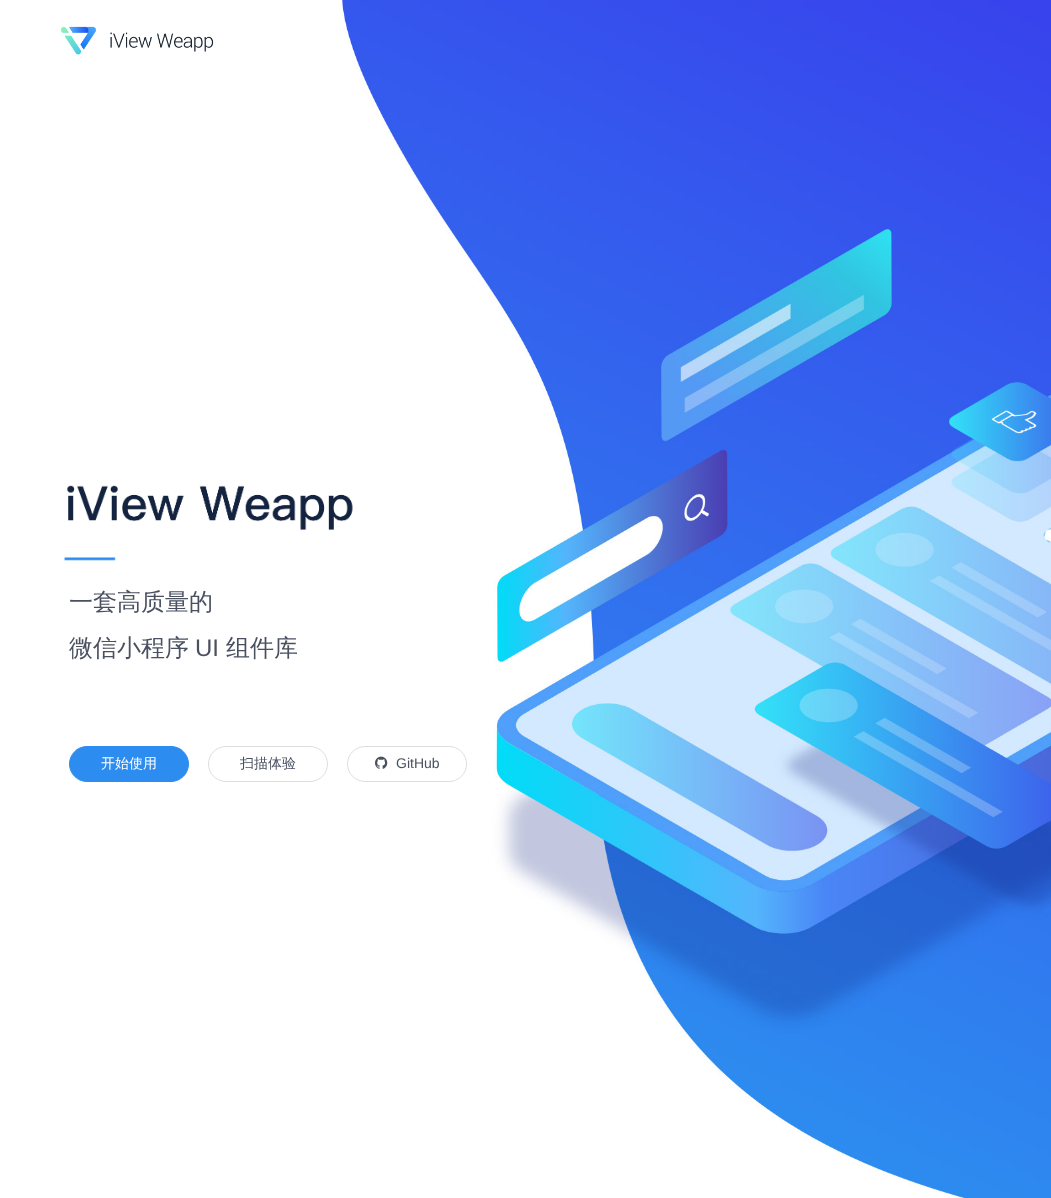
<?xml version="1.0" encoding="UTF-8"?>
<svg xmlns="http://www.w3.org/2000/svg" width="1051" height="1198">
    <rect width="100%" height="100%" fill="#FFFFFF"/>
    <image x="340" y="0" width="711" height="1198" href="img_01.png"/>
    <image x="60" y="26" width="154" height="29" href="img_02.png"/>
    <image x="64" y="485" width="289" height="76" href="img_03.png"/>
    <text font-family="WenQuanYi Zen Hei" font-size="24" font-weight="500" fill="#495060">
        <tspan x="69" y="610">一套高质量的</tspan>
        <tspan x="69" y="656">微信小程序</tspan>
    </text>
    <text x="195" y="656" font-family="Liberation Sans" font-size="24" fill="#495060">UI</text>
    <text x="226" y="656" font-family="WenQuanYi Zen Hei" font-size="24" font-weight="500" fill="#495060">组件库</text>
    <rect x="69.5" y="746.5" width="119" height="35" rx="17.5" fill="#2D8CF0" stroke="#2D8CF0"/>
    <text x="101" y="768" font-family="WenQuanYi Zen Hei" font-size="14" font-weight="500" fill="#FFFFFF">开始使用</text>
    <rect x="208.5" y="746.5" width="119" height="35" rx="17.5" fill="none" stroke="#DDDEE1"/>
    <text x="240" y="768" font-family="WenQuanYi Zen Hei" font-size="14" font-weight="500" fill="#495060">扫描体验</text>
    <rect x="347.5" y="746.5" width="119" height="35" rx="17.5" fill="none" stroke="#DDDEE1"/>
    <image x="375" y="756" width="13" height="13" href="img_04.png"/>
    <text x="396" y="768" font-family="Liberation Sans" font-size="14" fill="#495060">GitHub</text>
</svg>
